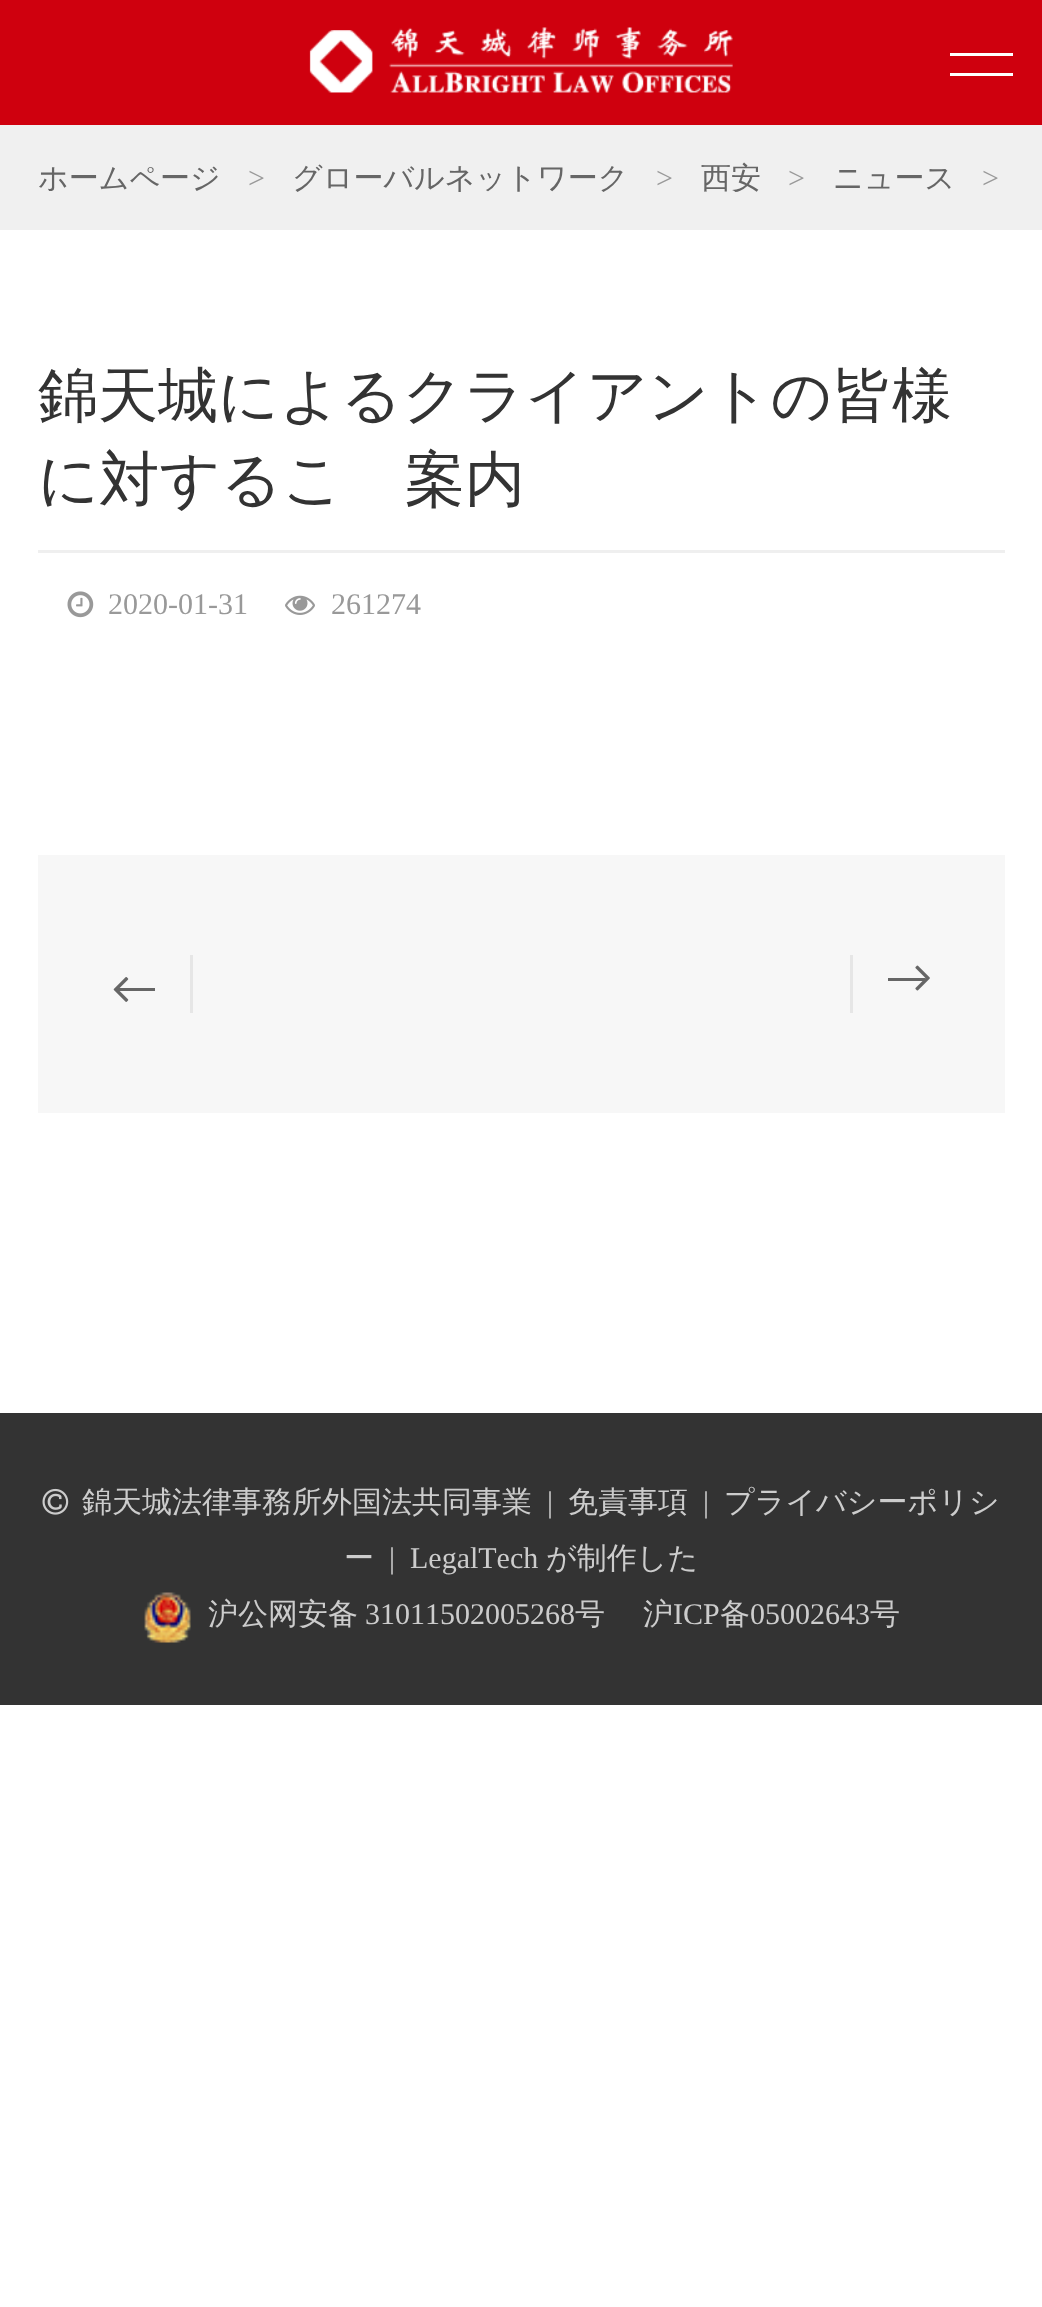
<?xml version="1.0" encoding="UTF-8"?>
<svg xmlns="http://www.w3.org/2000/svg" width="1042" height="2307">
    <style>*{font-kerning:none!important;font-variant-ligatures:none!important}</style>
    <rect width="100%" height="100%" fill="#FFFFFF"/>
    <rect x="0" y="0" width="1042" height="125" fill="#CF000E"/>
    <image x="309" y="27" width="424" height="66" href="img_01.png"/>
    <rect x="950" y="53" width="63" height="3" fill="#FFFFFF"/>
    <rect x="950" y="73" width="63" height="3" fill="#FFFFFF"/>
    <rect x="0" y="125" width="1042" height="105" fill="#F0F0F0"/>
    <text x="38" y="188" font-family="WenQuanYi Zen Hei" font-size="30" font-weight="500" fill="#666666">ホームページ</text>
    <text x="248" y="188" font-family="Liberation Serif" font-size="30" fill="#999999">&gt;</text>
    <text x="292" y="188" font-family="WenQuanYi Zen Hei" font-size="30" font-weight="500" fill="#666666">グローバルネットワーク</text>
    <text x="656" y="188" font-family="Liberation Serif" font-size="30" fill="#999999">&gt;</text>
    <text x="701" y="188" font-family="WenQuanYi Zen Hei" font-size="30" font-weight="500" fill="#666666">西安</text>
    <text x="788" y="188" font-family="Liberation Serif" font-size="30" fill="#999999">&gt;</text>
    <text x="833" y="188" font-family="WenQuanYi Zen Hei" font-size="30" font-weight="500" fill="#666666">ニュース</text>
    <text x="982" y="188" font-family="Liberation Serif" font-size="30" fill="#999999">&gt;</text>
    <rect x="38" y="550" width="967" height="3" fill="#EFEFEF"/>
    <text font-family="WenQuanYi Zen Hei" font-size="60" font-weight="500" fill="#333333">
        <tspan x="38" y="416">錦天城によるクライアントの皆様</tspan>
        <tspan x="38" y="500">に対するご案内</tspan>
    </text>
    <image x="67" y="591" width="27" height="27" href="img_02.png"/>
    <text x="108" y="614" font-family="Liberation Serif" font-size="30" fill="#999999">2020-01-31</text>
    <image x="285" y="595" width="30" height="20" href="img_03.png"/>
    <text x="331" y="614" font-family="Liberation Serif" font-size="30" fill="#999999">261274</text>
    <rect x="38" y="855" width="967" height="258" fill="#F7F7F7"/>
    <rect x="190" y="955" width="3" height="58" fill="#E6E6E6"/>
    <image x="113" y="977" width="16" height="25" href="img_04.png"/>
    <rect x="118" y="988" width="37" height="3" fill="#666666"/>
    <rect x="850" y="955" width="3" height="58" fill="#E6E6E6"/>
    <image x="915" y="965" width="15" height="26" href="img_05.png"/>
    <rect x="888" y="978" width="37" height="3" fill="#666666"/>
    <rect x="0" y="1413" width="1042" height="292" fill="#333333"/>
    <image x="42" y="1488" width="27" height="27" href="img_06.png"/>
    <text x="82" y="1512" font-family="WenQuanYi Zen Hei" font-size="30" font-weight="500" fill="#CCCCCC">錦天城法律事務所外国法共同事業</text>
    <text x="547" y="1512" font-family="Liberation Serif" font-size="30" fill="#CCCCCC">|</text>
    <text x="568" y="1512" font-family="WenQuanYi Zen Hei" font-size="30" font-weight="500" fill="#CCCCCC">免責事項</text>
    <text x="703" y="1512" font-family="Liberation Serif" font-size="30" fill="#CCCCCC">|</text>
    <text x="724" y="1512" font-family="WenQuanYi Zen Hei" font-size="30" font-weight="500" fill="#CCCCCC">プライバシーポリシ</text>
    <text x="344" y="1568" font-family="WenQuanYi Zen Hei" font-size="30" font-weight="500" fill="#CCCCCC">ー</text>
    <text x="389" y="1568" font-family="Liberation Serif" font-size="30" fill="#CCCCCC">|</text>
    <text x="410" y="1568" font-family="Liberation Serif" font-size="30" fill="#CCCCCC">LegalTech</text>
    <text x="546" y="1568" font-family="WenQuanYi Zen Hei" font-size="30" font-weight="500" fill="#CCCCCC">が制作した</text>
    <image x="144" y="1592" width="47" height="51" href="img_07.png"/>
    <text x="208" y="1624" font-family="WenQuanYi Zen Hei" font-size="30" font-weight="500" fill="#CCCCCC">沪公网安备</text>
    <text x="365" y="1624" font-family="Liberation Serif" font-size="30" fill="#CCCCCC">31011502005268</text>
    <text x="575" y="1624" font-family="WenQuanYi Zen Hei" font-size="30" font-weight="500" fill="#CCCCCC">号</text>
    <text x="643" y="1624" font-family="WenQuanYi Zen Hei" font-size="30" font-weight="500" fill="#CCCCCC">沪</text>
    <text x="673" y="1624" font-family="Liberation Serif" font-size="30" fill="#CCCCCC">ICP</text>
    <text x="720" y="1624" font-family="WenQuanYi Zen Hei" font-size="30" font-weight="500" fill="#CCCCCC">备</text>
    <text x="750" y="1624" font-family="Liberation Serif" font-size="30" fill="#CCCCCC">05002643</text>
    <text x="870" y="1624" font-family="WenQuanYi Zen Hei" font-size="30" font-weight="500" fill="#CCCCCC">号</text>
</svg>
